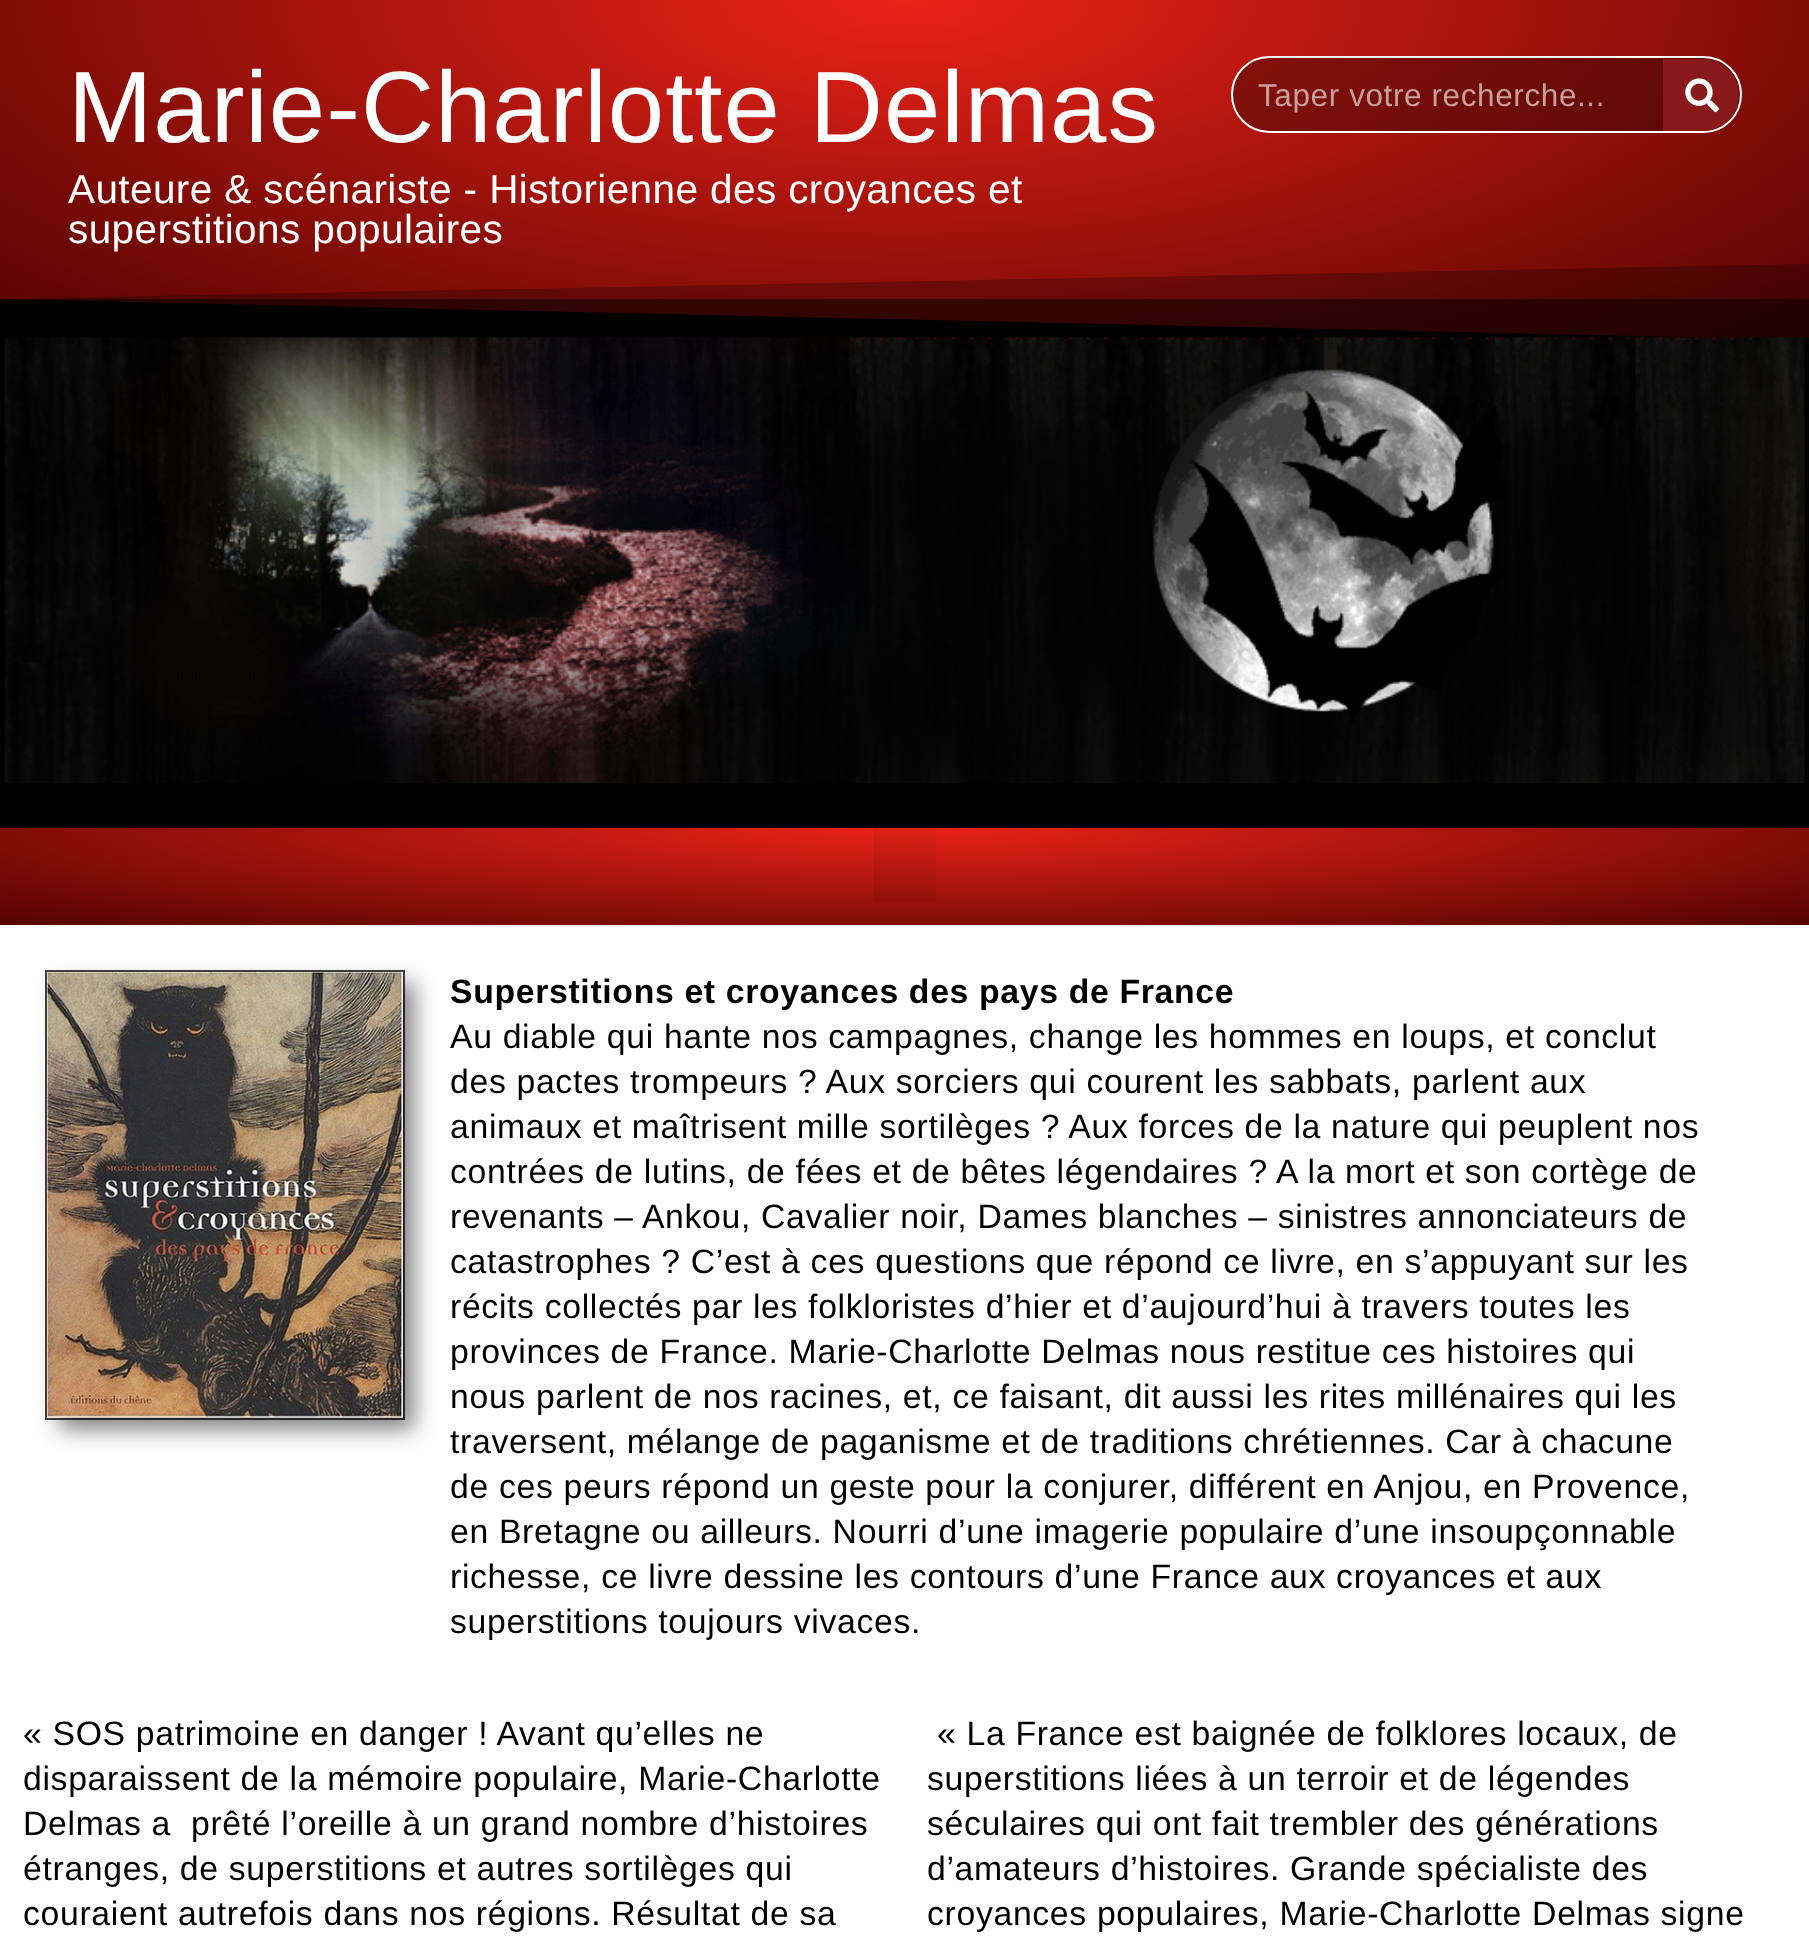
<?xml version="1.0" encoding="UTF-8"?>
<svg xmlns="http://www.w3.org/2000/svg" width="1809" height="1939">
    <defs>
        <radialGradient id="g1" gradientUnits="userSpaceOnUse" cx="0" cy="0" r="1" gradientTransform="matrix(1279 0 0 477 905 0)"><stop offset="0" stop-color="#EB2218"/><stop offset="1" stop-color="#530300"/></radialGradient>
        <radialGradient id="g2" gradientUnits="userSpaceOnUse" cx="0" cy="0" r="1" gradientTransform="matrix(1279 0 0 477 905 0)"><stop offset="0" stop-color="#76110C"/><stop offset="1" stop-color="#2A0200"/></radialGradient>
        <radialGradient id="g3" gradientUnits="userSpaceOnUse" cx="0" cy="0" r="1" gradientTransform="matrix(1279 0 0 137 905 828)"><stop offset="0" stop-color="#EB2218"/><stop offset="1" stop-color="#530300"/></radialGradient>
        <filter id="blur1" x="-50%" y="-200%" width="200%" height="500%"><feGaussianBlur stdDeviation="11"/></filter>
    </defs>
    <rect width="100%" height="100%" fill="#FFFFFF"/>
    <rect x="0" y="340" width="1809" height="488" fill="#000000"/>
    <rect x="1804" y="338" width="5" height="2" fill="#000000"/>
    <rect x="0" y="0" width="1809" height="299" fill="url(#g1)"/>
    <rect x="1" y="299" width="1808" height="39" fill="url(#g2)"/>
    <text x="68" y="142" font-family="Liberation Sans" font-size="101.25" letter-spacing="1" fill="#FFFFFF">Marie-Charlotte Delmas</text>
    <text font-family="Liberation Sans" font-size="40.5" letter-spacing="0.4" fill="#FFFFFF">
        <tspan x="68" y="203">Auteure &amp; scénariste - Historienne des croyances et</tspan>
        <tspan x="68" y="243">superstitions populaires</tspan>
    </text>
    <rect x="1232" y="57" width="509" height="75" rx="37.5" fill="#000000" fill-opacity="0.3" stroke="#FFFFFF" stroke-width="2"/>
    <text x="1258" y="106" font-family="Liberation Sans" font-size="31.5" letter-spacing="0.6" fill="#C89F9D">Taper votre recherche...</text>
    <path d="M 1663 59 H 1703 C 1723 59 1739 75 1739 95 C 1739 115 1723 131 1703 131 H 1663 Z" fill="#89191B"/>
    <image x="1685" y="78" width="34" height="35" href="img_01.png"/>
    <path d="M 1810 340 H -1 V 299 Z" fill="#000000"/>
    <path d="M -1 340 H 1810 V 264 L -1 299 Z" fill="#000000" fill-opacity="0.25"/>
    <image x="4" y="337" width="1801" height="446" href="img_02.png"/>
    <rect x="0" y="828" width="1809" height="97" fill="url(#g3)"/>
    <rect x="873" y="828" width="63" height="74" fill="#000000" fill-opacity="0.05"/>
    <rect x="46" y="971" width="358" height="448" fill="none" stroke="#423F3F" stroke-width="2"/>
    <rect x="59" y="983" width="355" height="446" fill="#000000" fill-opacity="0.5" filter="url(#blur1)"/>
    <image x="47" y="972" width="356" height="446" href="img_03.png"/>
    <text x="450" y="1003" font-family="Liberation Sans" font-size="33.75" font-weight="700" letter-spacing="0.67" fill="#000000">Superstitions et croyances des pays de France</text>
    <text font-family="Liberation Sans" font-size="33.75" letter-spacing="0.67" fill="#000000">
        <tspan x="450" y="1048">Au diable qui hante nos campagnes, change les hommes en loups, et conclut</tspan>
        <tspan x="450" y="1093">des pactes trompeurs ? Aux sorciers qui courent les sabbats, parlent aux</tspan>
        <tspan x="450" y="1138">animaux et maîtrisent mille sortilèges ? Aux forces de la nature qui peuplent nos</tspan>
        <tspan x="450" y="1183">contrées de lutins, de fées et de bêtes légendaires ? A la mort et son cortège de</tspan>
        <tspan x="450" y="1228">revenants – Ankou, Cavalier noir, Dames blanches – sinistres annonciateurs de</tspan>
        <tspan x="450" y="1273">catastrophes ? C’est à ces questions que répond ce livre, en s’appuyant sur les</tspan>
        <tspan x="450" y="1318">récits collectés par les folkloristes d’hier et d’aujourd’hui à travers toutes les</tspan>
        <tspan x="450" y="1363">provinces de France. Marie-Charlotte Delmas nous restitue ces histoires qui</tspan>
        <tspan x="450" y="1408">nous parlent de nos racines, et, ce faisant, dit aussi les rites millénaires qui les</tspan>
        <tspan x="450" y="1453">traversent, mélange de paganisme et de traditions chrétiennes. Car à chacune</tspan>
        <tspan x="450" y="1498">de ces peurs répond un geste pour la conjurer, différent en Anjou, en Provence,</tspan>
        <tspan x="450" y="1543">en Bretagne ou ailleurs. Nourri d’une imagerie populaire d’une insoupçonnable</tspan>
        <tspan x="450" y="1588">richesse, ce livre dessine les contours d’une France aux croyances et aux</tspan>
        <tspan x="450" y="1633">superstitions toujours vivaces.</tspan>
    </text>
    <text font-family="Liberation Sans" font-size="33.75" letter-spacing="0.67" fill="#000000" xml:space="preserve"><tspan x="23" y="1745">« SOS patrimoine en danger ! Avant qu’elles ne</tspan><tspan x="23" y="1790">disparaissent de la mémoire populaire, Marie-Charlotte</tspan><tspan x="23" y="1835">Delmas a  prêté l’oreille à un grand nombre d’histoires</tspan><tspan x="23" y="1880">étranges, de superstitions et autres sortilèges qui</tspan><tspan x="23" y="1925">couraient autrefois dans nos régions. Résultat de sa</tspan></text>
    <text x="937" y="1745" font-family="Liberation Sans" font-size="33.75" letter-spacing="0.67" fill="#000000">« La France est baignée de folklores locaux, de</text>
    <text font-family="Liberation Sans" font-size="33.75" letter-spacing="0.67" fill="#000000">
        <tspan x="927" y="1790">superstitions liées à un terroir et de légendes</tspan>
        <tspan x="927" y="1835">séculaires qui ont fait trembler des générations</tspan>
        <tspan x="927" y="1880">d’amateurs d’histoires. Grande spécialiste des</tspan>
        <tspan x="927" y="1925">croyances populaires, Marie-Charlotte Delmas signe</tspan>
    </text>
</svg>
